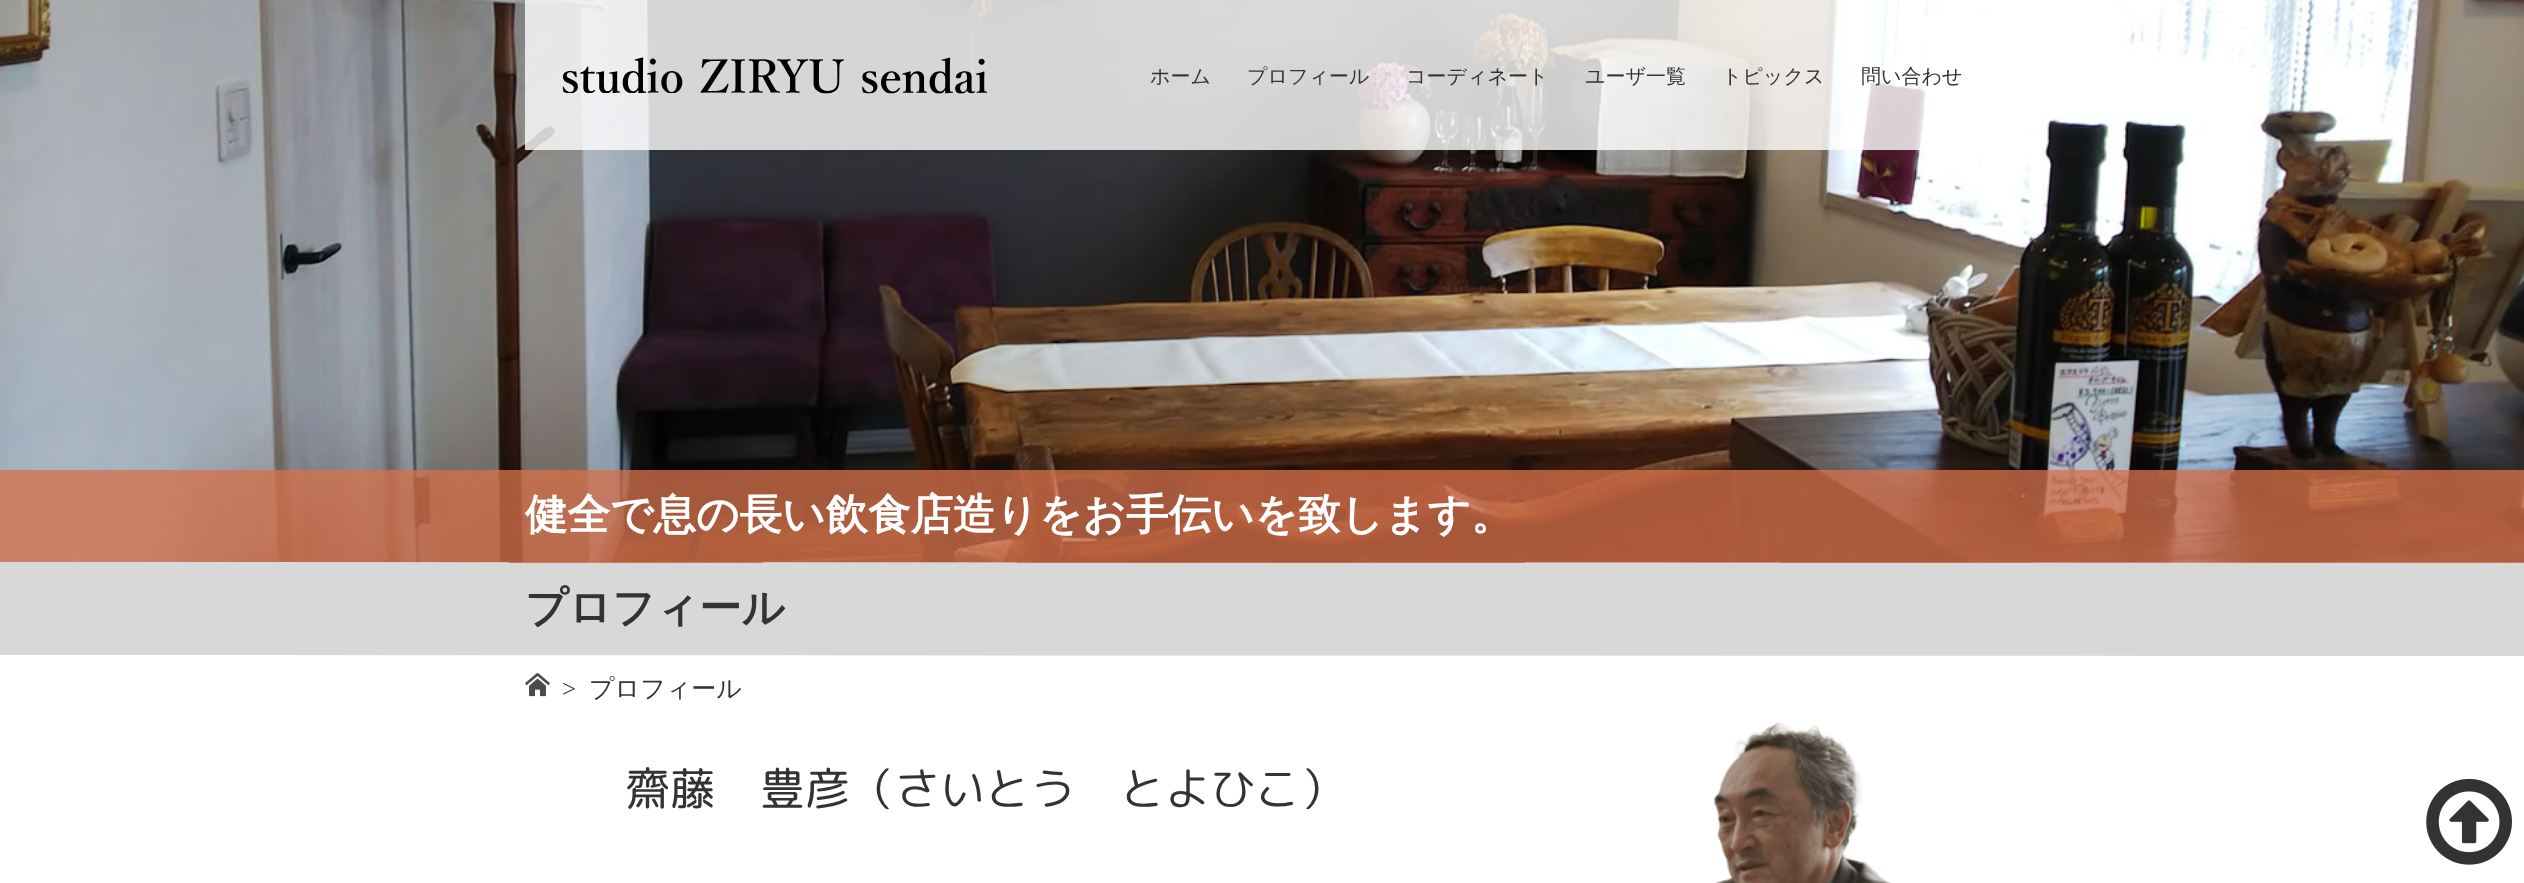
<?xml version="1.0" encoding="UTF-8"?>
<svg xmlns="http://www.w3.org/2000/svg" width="2524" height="883">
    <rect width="100%" height="100%" fill="#FFFFFF"/>
    <image x="0" y="0" width="2524" height="563" href="img_01.png"/>
    <rect x="525" y="0" width="1474" height="150" fill="#FFFFFF" fill-opacity="0.8"/>
    <image x="562" y="57" width="425" height="37" href="img_02.png"/>
    <text x="1150" y="83" font-family="WenQuanYi Zen Hei" font-size="20" font-weight="500" fill="#333333">ホーム</text>
    <text x="1247" y="83" font-family="WenQuanYi Zen Hei" font-size="20" font-weight="500" fill="#333333">プロフィール</text>
    <text x="1406" y="83" font-family="WenQuanYi Zen Hei" font-size="20" font-weight="500" fill="#333333">コーディネート</text>
    <text x="1585" y="83" font-family="WenQuanYi Zen Hei" font-size="20" font-weight="500" fill="#333333">ユーザ一覧</text>
    <text x="1722" y="83" font-family="WenQuanYi Zen Hei" font-size="20" font-weight="500" fill="#333333">トピックス</text>
    <text x="1861" y="83" font-family="WenQuanYi Zen Hei" font-size="20" font-weight="500" fill="#333333">問い合わせ</text>
    <rect x="0" y="470" width="2524" height="93" fill="#D6714B" fill-opacity="0.76"/>
    <text x="525" y="529" font-family="WenQuanYi Zen Hei" font-size="42.5" font-weight="700" fill="#FFFFFF">健全で息の長い飲食店造りをお手伝いを致します。</text>
    <path d="M 0 562 L 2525 563 V 656 L 0 655 Z" fill="#D9D8D8"/>
    <text x="525" y="622" transform="rotate(0.1 525 622)" font-family="WenQuanYi Zen Hei" font-size="42.5" font-weight="700" fill="#333333">プロフィール</text>
    <image x="525" y="673" width="25" height="24" href="img_03.png"/>
    <text x="562" y="697" font-family="Liberation Serif" font-size="25" fill="#333333">&gt;</text>
    <text x="589" y="697" font-family="WenQuanYi Zen Hei" font-size="25" font-weight="500" fill="#333333">プロフィール</text>
    <text x="625" y="805" font-family="'Rounded Mplus 1c'" font-size="45" fill="#333333">齋藤　豊彦（さいとう　とよひこ）</text>
    <image x="1713" y="722" width="179" height="161" href="img_04.png"/>
    <image x="2426" y="778" width="86" height="87" href="img_05.png"/>
</svg>
